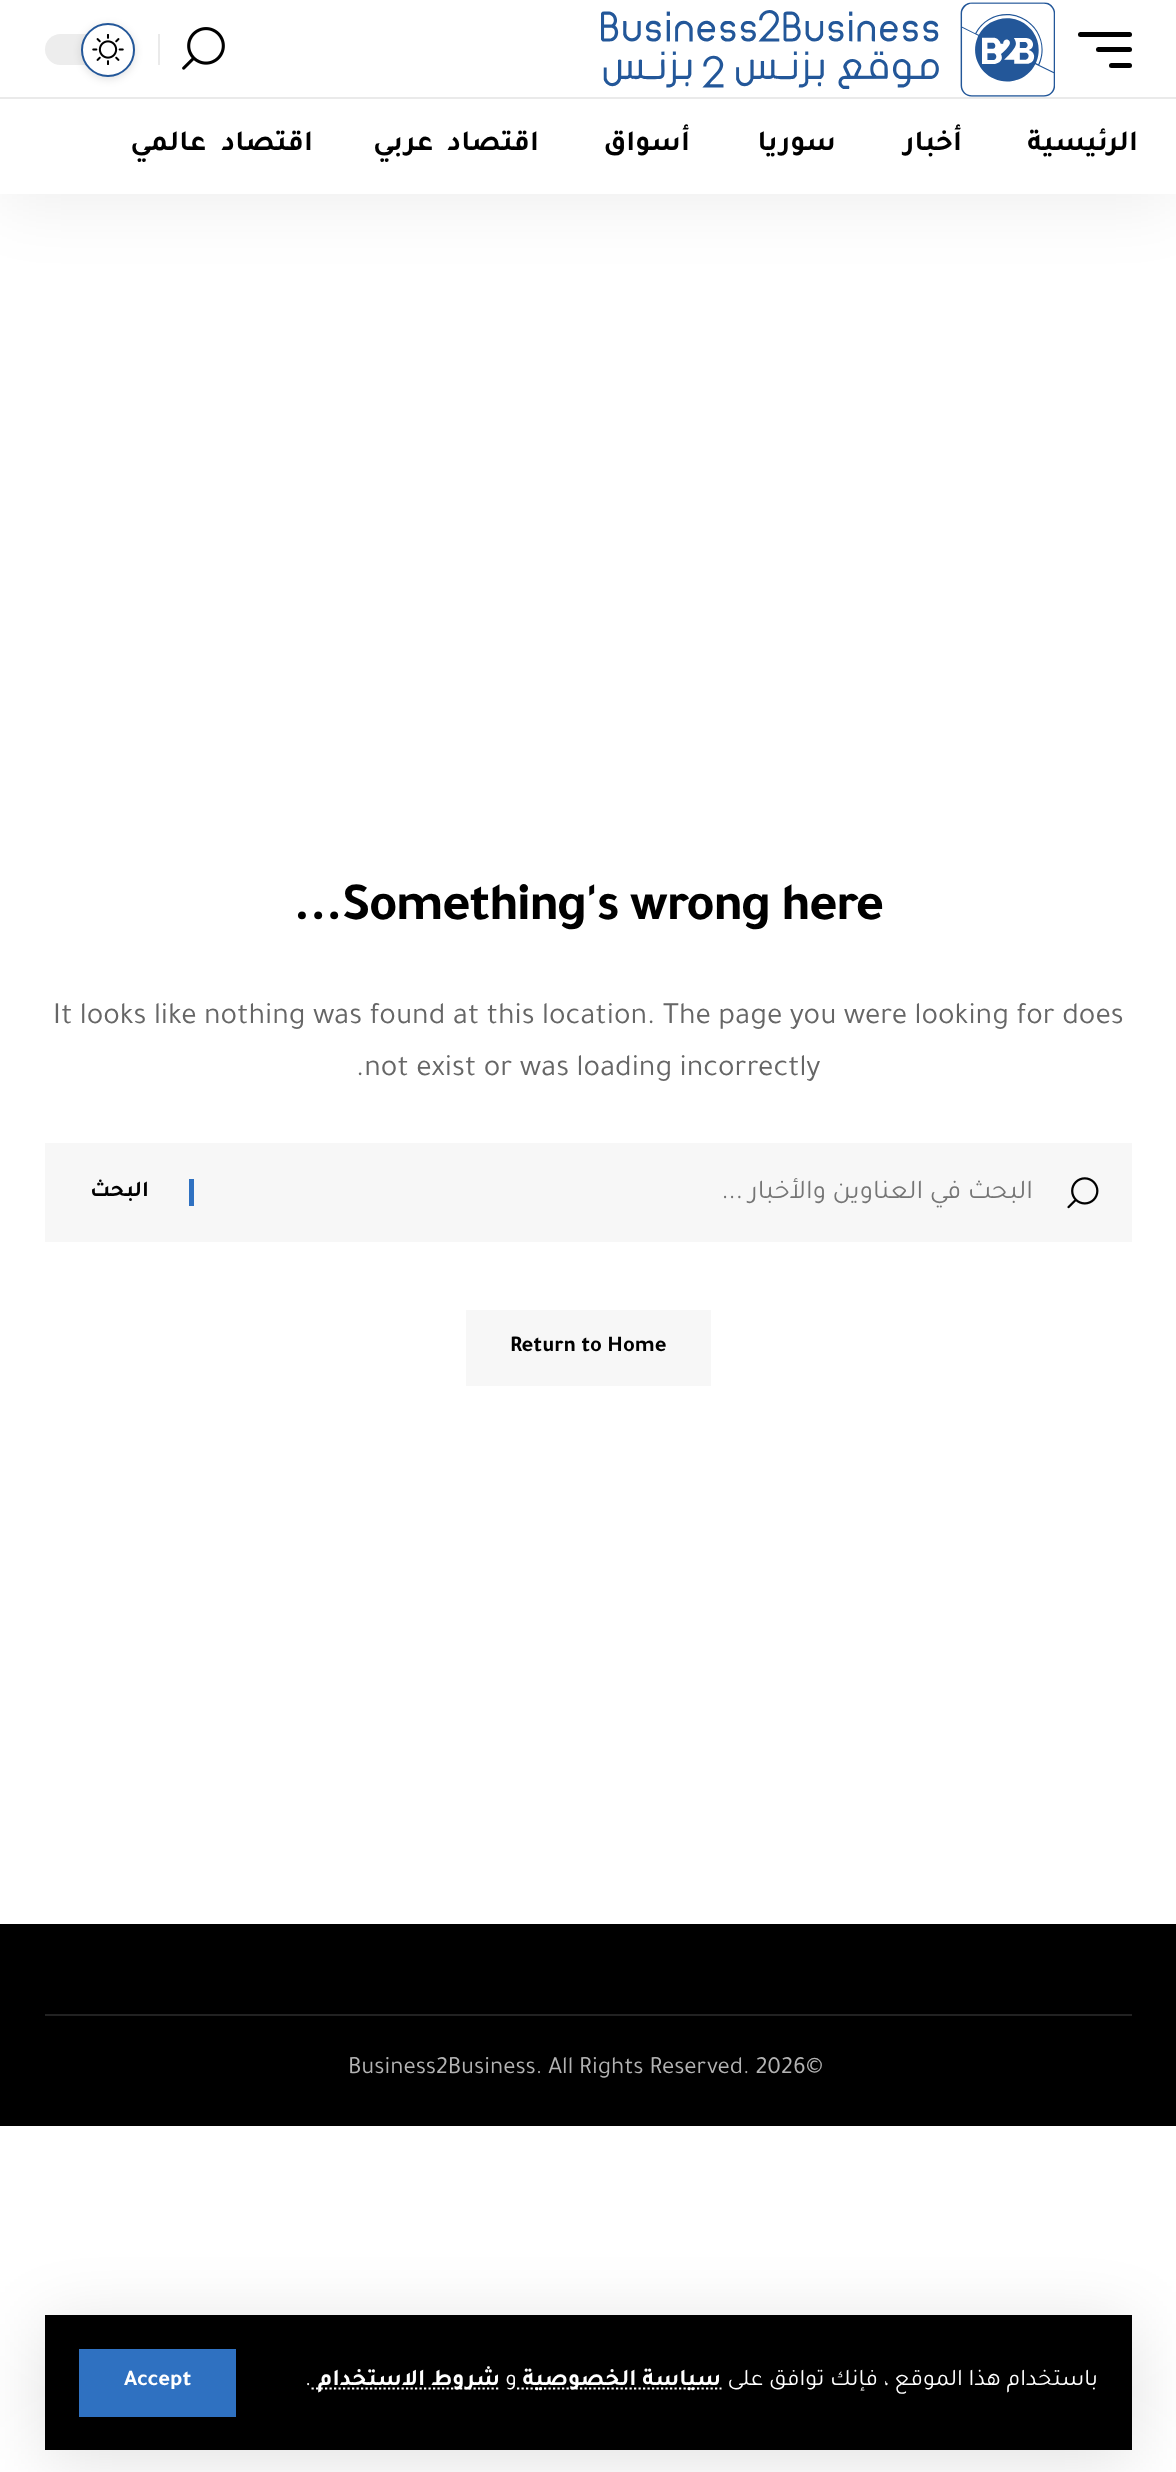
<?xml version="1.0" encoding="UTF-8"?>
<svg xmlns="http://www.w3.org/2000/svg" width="1176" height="2472">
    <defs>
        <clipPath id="clip1"><rect x="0" y="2" width="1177" height="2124"/></clipPath>
        <filter id="blur1" x="-50%" y="-200%" width="200%" height="500%"><feGaussianBlur stdDeviation="34"/></filter>
        <filter id="blur2" x="-50%" y="-200%" width="200%" height="500%"><feGaussianBlur stdDeviation="4.5"/></filter>
    </defs>
    <rect width="100%" height="100%" fill="#FFFFFF"/>
    <g clip-path="url(#clip1)">
        <rect x="0" y="11" width="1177" height="192" fill="#000000" fill-opacity="0.07" filter="url(#blur1)"/>
    </g>
    <rect x="0" y="2" width="1176" height="192" fill="#FFFFFF"/>
    <rect x="158" y="34" width="2" height="31" fill="#EAEAEA"/>
    <rect x="45" y="34" width="90" height="31" rx="15.5" fill="#EDEDED"/>
    <rect x="81" y="25" width="54" height="54" rx="27" fill="#000000" fill-opacity="0.12" filter="url(#blur2)"/>
    <circle cx="108" cy="50" r="26" fill="#FFFFFF" stroke="#235799" stroke-width="2"/>
    <image x="92" y="34" width="32" height="31" href="img_01.png"/>
    <image x="182" y="27" width="43" height="43" href="img_02.png"/>
    <image x="601" y="2" width="454" height="95" href="img_03.png"/>
    <rect x="1078" y="32" width="54" height="5" rx="2.5" fill="#000000"/>
    <rect x="1096" y="47" width="36" height="5" rx="2.5" fill="#000000"/>
    <rect x="1109" y="63" width="23" height="5" rx="2.5" fill="#000000"/>
    <rect x="0" y="97" width="1176" height="2" fill="#EAEAEA"/>
    <text x="313" y="150" word-spacing="8" font-family="Tajawal" font-size="29.25" font-weight="700" letter-spacing="-0.6" direction="rtl" fill="#000000">اقتصاد عالمي</text>
    <text x="539" y="150" word-spacing="7" font-family="Tajawal" font-size="29.25" font-weight="700" letter-spacing="-0.6" direction="rtl" fill="#000000">اقتصاد عربي</text>
    <text x="690" y="150" font-family="Tajawal" font-size="29.25" font-weight="700" letter-spacing="-0.6" direction="rtl" fill="#000000">أسواق</text>
    <text x="836" y="150" font-family="Tajawal" font-size="29.25" font-weight="700" letter-spacing="-0.6" direction="rtl" fill="#000000">سوريا</text>
    <text x="962" y="150" font-family="Tajawal" font-size="29.25" font-weight="700" letter-spacing="-0.6" direction="rtl" fill="#000000">أخبار</text>
    <text x="1138" y="150" font-family="Tajawal" font-size="29.25" font-weight="700" letter-spacing="-0.6" direction="rtl" fill="#000000">الرئيسية</text>
    <rect x="45" y="2324" width="1087" height="135" fill="#000000" fill-opacity="0.12" filter="url(#blur1)"/>
    <rect x="45" y="2315" width="1087" height="135" fill="#000000"/>
    <rect x="79" y="2349" width="157" height="68" fill="#2F71C1"/>
    <text x="124" y="2385" font-family="Tajawal" font-size="22.5" font-weight="700" fill="#FFFFFF">Accept</text>
    <text x="305" y="2385" font-family="Tajawal" font-size="23.6" fill="#FFFFFF">.</text>
    <path d="M 311.5 2388.5 H 499.5" fill="none" stroke="#FFFFFF" stroke-width="2.2" stroke-dasharray="2.25 2.25"/>
    <text x="500" y="2385" font-family="Tajawal" font-size="23.6" font-weight="700" direction="rtl" fill="#FFFFFF">شروط الاستخدام</text>
    <text x="517" y="2385" font-family="Tajawal" font-size="23.6" direction="rtl" fill="#FFFFFF">و</text>
    <path d="M 517 2388.5 H 721.5" fill="none" stroke="#FFFFFF" stroke-width="2.2" stroke-dasharray="2.25 2.25"/>
    <text x="721" y="2385" font-family="Tajawal" font-size="23.6" font-weight="700" direction="rtl" fill="#FFFFFF">سياسة الخصوصية</text>
    <text x="1098" y="2385" font-family="Tajawal" font-size="23.6" direction="rtl" fill="#FFFFFF">باستخدام هذا الموقع ، فإنك توافق على</text>
    <text x="293" y="919" font-family="Tajawal" font-size="54" font-weight="700" letter-spacing="-1.55" fill="#000000">...Something's wrong here</text>
    <text x="53" y="1023" font-family="Tajawal" font-size="31.05" fill="#666666">It looks like nothing was found at this location. The page you were looking for does</text>
    <text x="356" y="1075" font-family="Tajawal" font-size="31.05" fill="#666666">.not exist or was loading incorrectly</text>
    <rect x="45" y="1143" width="1087" height="99" fill="#F7F7F7"/>
    <text x="149" y="1196" font-family="Tajawal" font-size="22.5" font-weight="700" direction="rtl" fill="#000000">البحث</text>
    <rect x="189" y="1179" width="5" height="27" fill="#2F71C1"/>
    <text x="1033" y="1198" font-family="Tajawal" font-size="27" direction="rtl" fill="#757575">البحث في العناوين والأخبار ...</text>
    <image x="1067" y="1177" width="32" height="32" href="img_04.png"/>
    <rect x="466" y="1310" width="245" height="76" fill="#F7F7F7"/>
    <text x="510" y="1351" font-family="Tajawal" font-size="22.5" font-weight="700" fill="#000000">Return to Home</text>
    <rect x="0" y="1924" width="1176" height="202" fill="#000000"/>
    <rect x="45" y="2014" width="1087" height="2" fill="#222222"/>
    <text x="348" y="2073" font-family="Tajawal" font-size="24.75" fill="#B3B3B3">Business2Business. All Rights Reserved. 2026©</text>
</svg>
